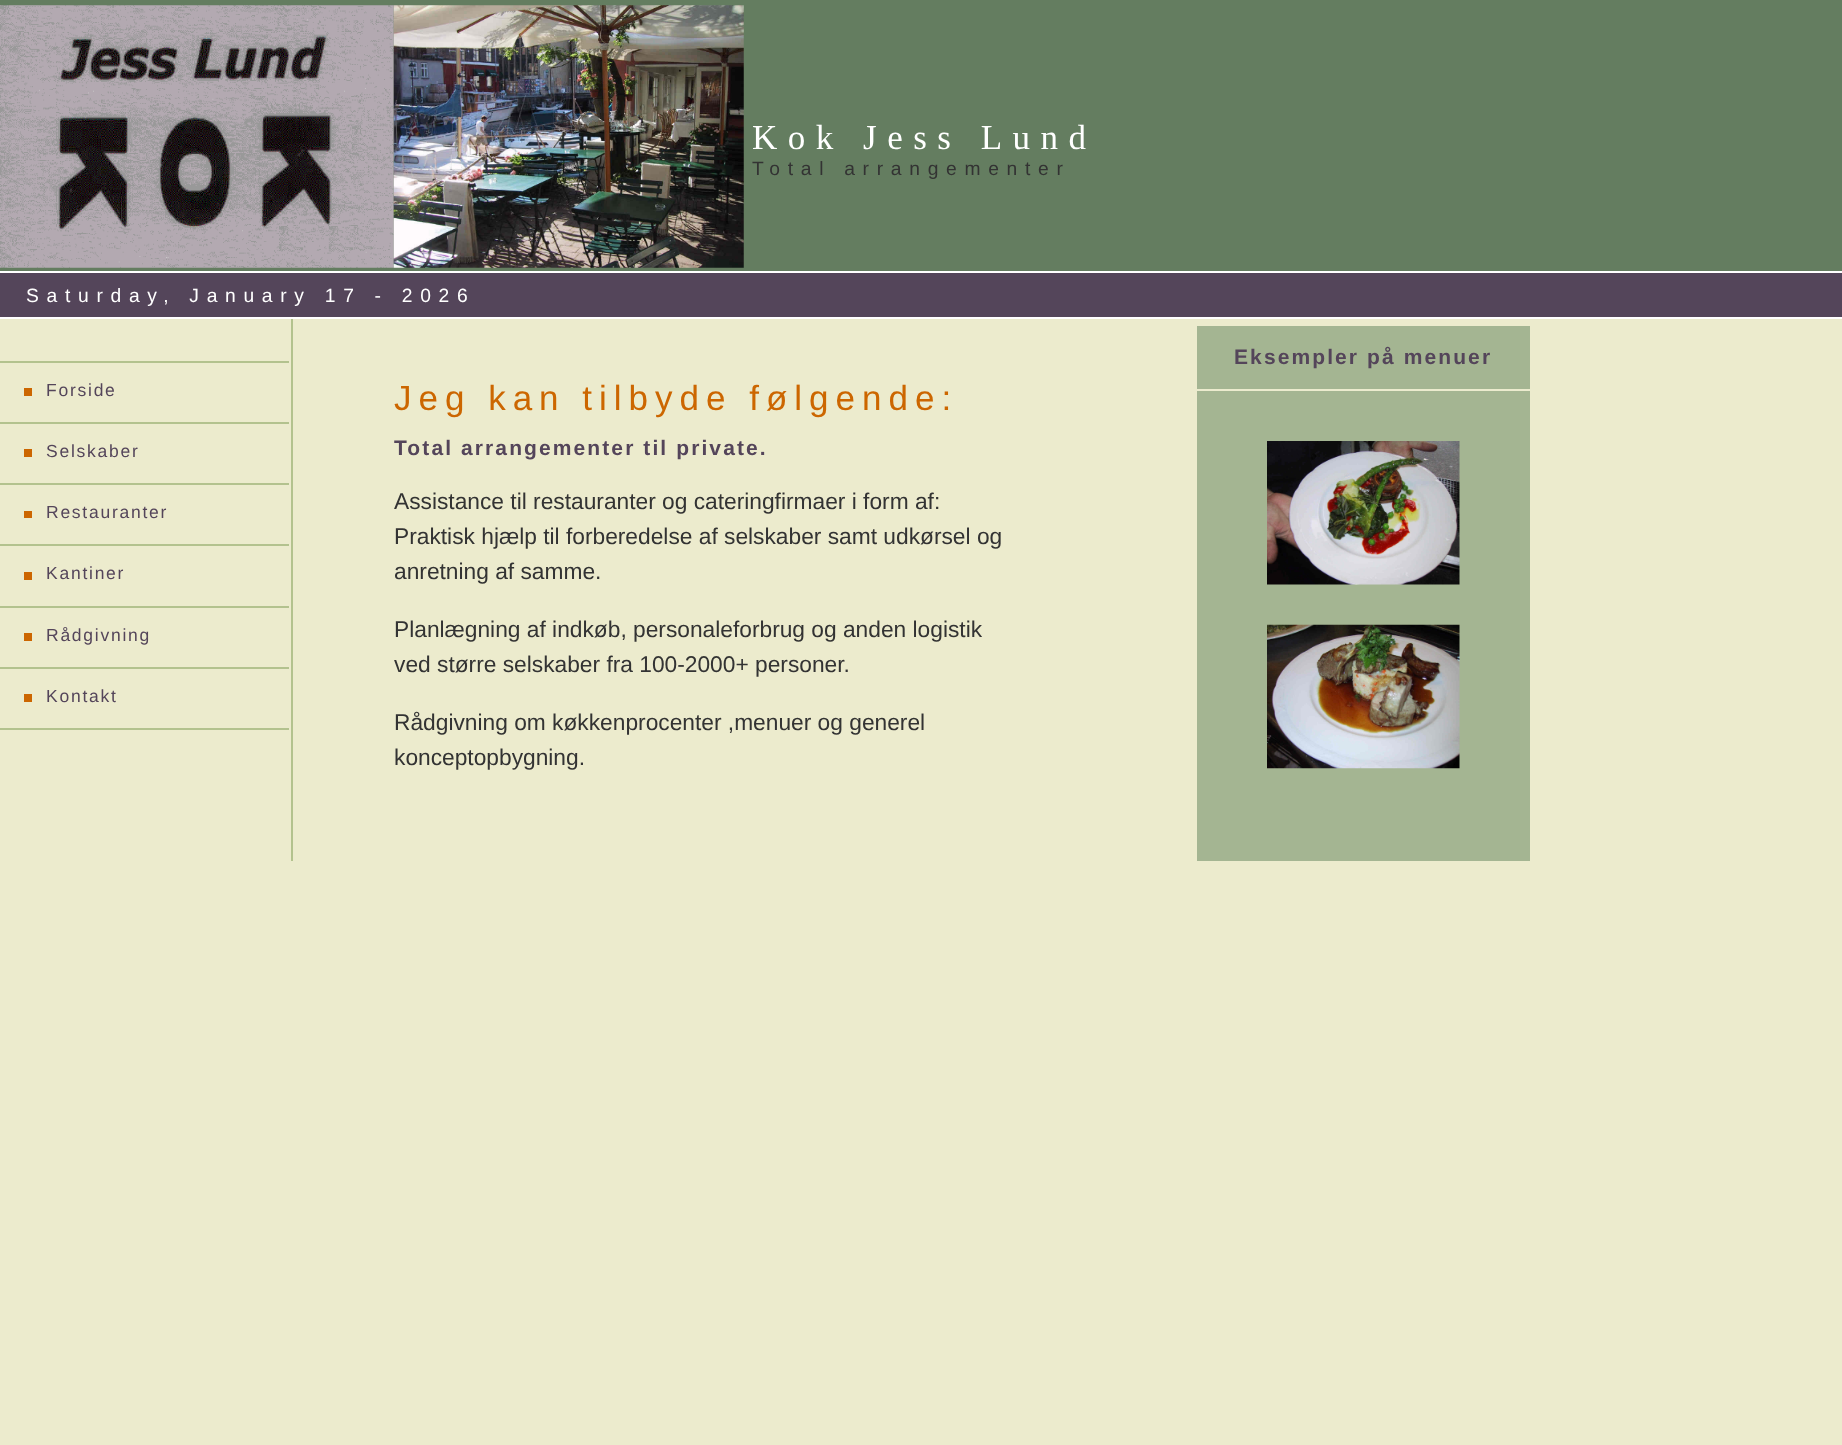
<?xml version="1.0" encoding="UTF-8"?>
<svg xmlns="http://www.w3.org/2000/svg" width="1842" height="1445">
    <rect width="100%" height="100%" fill="#ECEBCD"/>
    <rect x="0" y="0" width="1842" height="271" fill="#647D60"/>
    <image x="0" y="5" width="394" height="263" href="img_01.png"/>
    <image x="393" y="5" width="351" height="263" href="img_02.png"/>
    <text x="752" y="149" font-family="Liberation Serif" font-size="35" letter-spacing="10.5" fill="#FFFFFF">Kok Jess Lund</text>
    <text x="752" y="175" font-family="Liberation Sans" font-size="19.25" letter-spacing="7.7" fill="#333333">Total arrangementer</text>
    <rect x="0" y="271" width="1842" height="2" fill="#FFFFFF"/>
    <rect x="0" y="273" width="1842" height="44" fill="#54455A"/>
    <text x="26" y="302" font-family="Liberation Sans" font-size="19.25" letter-spacing="7.7" fill="#FFFFFF">Saturday, January 17 - 2026</text>
    <rect x="0" y="317" width="1842" height="2" fill="#FFFFFF"/>
    <rect x="1197" y="326" width="333" height="535" fill="#A4B592"/>
    <rect x="1197" y="389" width="333" height="2" fill="#EBEBCE"/>
    <text x="1234" y="364" font-family="Liberation Sans" font-size="21" font-weight="700" letter-spacing="2.1" fill="#54455A">Eksempler på menuer</text>
    <image x="1267" y="441" width="193" height="144" href="img_03.png"/>
    <image x="1267" y="624" width="193" height="145" href="img_04.png"/>
    <rect x="291" y="319" width="2" height="542" fill="#B3C28E"/>
    <rect x="0" y="361" width="289" height="2" fill="#B3C28E"/>
    <rect x="0" y="422" width="289" height="2" fill="#B3C28E"/>
    <rect x="24" y="388" width="8" height="8" fill="#CC6600"/>
    <text x="46" y="396" font-family="Liberation Sans" font-size="17.5" letter-spacing="1.75" fill="#54455A">Forside</text>
    <rect x="0" y="483" width="289" height="2" fill="#B3C28E"/>
    <rect x="24" y="449" width="8" height="8" fill="#CC6600"/>
    <text x="46" y="457" font-family="Liberation Sans" font-size="17.5" letter-spacing="1.75" fill="#54455A">Selskaber</text>
    <rect x="0" y="544" width="289" height="2" fill="#B3C28E"/>
    <rect x="24" y="511" width="8" height="7" fill="#CC6600"/>
    <text x="46" y="518" font-family="Liberation Sans" font-size="17.5" letter-spacing="1.75" fill="#54455A">Restauranter</text>
    <rect x="0" y="606" width="289" height="2" fill="#B3C28E"/>
    <rect x="24" y="572" width="8" height="8" fill="#CC6600"/>
    <text x="46" y="579" font-family="Liberation Sans" font-size="17.5" letter-spacing="1.75" fill="#54455A">Kantiner</text>
    <rect x="0" y="667" width="289" height="2" fill="#B3C28E"/>
    <rect x="24" y="633" width="8" height="8" fill="#CC6600"/>
    <text x="46" y="641" font-family="Liberation Sans" font-size="17.5" letter-spacing="1.75" fill="#54455A">Rådgivning</text>
    <rect x="0" y="728" width="289" height="2" fill="#B3C28E"/>
    <rect x="24" y="694" width="8" height="8" fill="#CC6600"/>
    <text x="46" y="702" font-family="Liberation Sans" font-size="17.5" letter-spacing="1.75" fill="#54455A">Kontakt</text>
    <text x="394" y="410" font-family="Liberation Sans" font-size="35" letter-spacing="7" fill="#CC6600">Jeg kan tilbyde følgende:</text>
    <text x="394" y="455" font-family="Liberation Sans" font-size="21" font-weight="700" letter-spacing="2.1" fill="#54455A">Total arrangementer til private.</text>
    <text font-family="Liberation Sans" font-size="22.75" fill="#333333">
        <tspan x="394" y="509">Assistance til restauranter og cateringfirmaer i form af:</tspan>
        <tspan x="394" y="544">Praktisk hjælp til forberedelse af selskaber samt udkørsel og</tspan>
        <tspan x="394" y="579">anretning af samme.</tspan>
    </text>
    <text font-family="Liberation Sans" font-size="22.75" fill="#333333">
        <tspan x="394" y="637">Planlægning af indkøb, personaleforbrug og anden logistik</tspan>
        <tspan x="394" y="672">ved større selskaber fra 100-2000+ personer.</tspan>
    </text>
    <text font-family="Liberation Sans" font-size="22.75" fill="#333333">
        <tspan x="394" y="730">Rådgivning om køkkenprocenter ,menuer og generel</tspan>
        <tspan x="394" y="765">konceptopbygning.</tspan>
    </text>
</svg>
